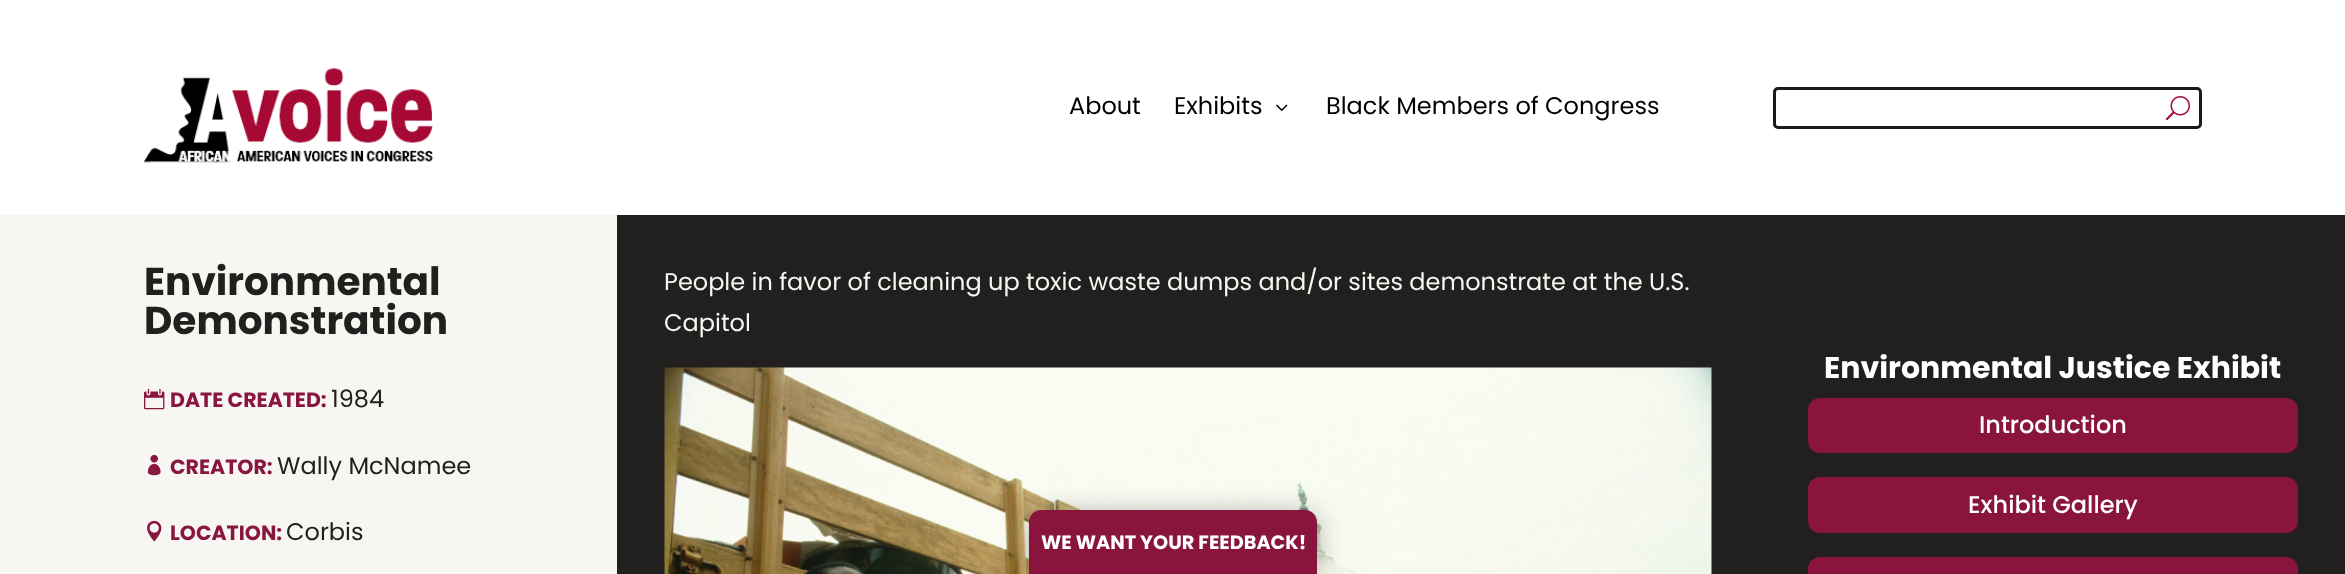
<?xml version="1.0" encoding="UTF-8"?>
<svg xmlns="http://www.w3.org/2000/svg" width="2345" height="574">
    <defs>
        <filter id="blur1" x="-50%" y="-200%" width="200%" height="500%"><feGaussianBlur stdDeviation="13.5"/></filter>
    </defs>
    <rect width="100%" height="100%" fill="#FFFFFF"/>
    <image x="144" y="68" width="289" height="95" href="img_01.png"/>
    <text x="1069" y="114" font-family="Poppins" font-size="24" fill="#000000">About</text>
    <text x="1174" y="114" font-family="Poppins" font-size="24" fill="#000000">Exhibits</text>
    <image x="1276" y="104" width="12" height="7" href="img_02.png"/>
    <text x="1326" y="114" font-family="Poppins" font-size="24" fill="#000000">Black Members of Congress</text>
    <rect x="1774.5" y="88.5" width="426" height="39" rx="3.5" fill="none" stroke="#1B1A19" stroke-width="3"/>
    <image x="2165" y="96" width="25" height="25" href="img_03.png"/>
    <rect x="617" y="215" width="1728" height="359" fill="#21201E"/>
    <rect x="0" y="215" width="617" height="359" fill="#F7F6F3"/>
    <text font-family="Poppins" font-size="39" font-weight="700" fill="#21201E">
        <tspan x="144" y="295">Environmental</tspan>
        <tspan x="144" y="334">Demonstration</tspan>
    </text>
    <image x="144" y="388" width="21" height="22" href="img_04.png"/>
    <text x="170" y="407" font-family="Poppins" font-size="20.5" font-weight="700" fill="#89163E">DATE CREATED:</text>
    <text x="331" y="407" font-family="Poppins" font-size="24" fill="#21201E">1984</text>
    <image x="147" y="454" width="14" height="22" href="img_05.png"/>
    <text x="170" y="474" font-family="Poppins" font-size="20.5" font-weight="700" fill="#89163E">CREATOR:</text>
    <text x="277" y="474" font-family="Poppins" font-size="24" fill="#21201E">Wally McNamee</text>
    <image x="147" y="520" width="15" height="22" href="img_06.png"/>
    <text x="170" y="540" font-family="Poppins" font-size="20.5" font-weight="700" fill="#89163E">LOCATION:</text>
    <text x="286" y="540" font-family="Poppins" font-size="24" fill="#21201E">Corbis</text>
    <text font-family="Poppins" font-size="24" fill="#F7F6F3">
        <tspan x="664" y="290">People in favor of cleaning up toxic waste dumps and/or sites demonstrate at the U.S.</tspan>
        <tspan x="664" y="331">Capitol</tspan>
    </text>
    <image x="664" y="367" width="1048" height="207" href="img_07.png"/>
    <text x="1824" y="378" font-family="Poppins" font-size="30" font-weight="700" fill="#FFFFFF">Environmental Justice Exhibit</text>
    <rect x="1808" y="398" width="490" height="55" rx="12" fill="#89153E"/>
    <text x="1979" y="433" font-family="Poppins" font-size="24" font-weight="500" fill="#FFFFFF">Introduction</text>
    <rect x="1808" y="477" width="490" height="56" rx="12" fill="#89153E"/>
    <text x="1968" y="513" font-family="Poppins" font-size="24" font-weight="500" fill="#FFFFFF">Exhibit Gallery</text>
    <rect x="1808" y="557" width="490" height="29" rx="12" fill="#89153E"/>
    <rect x="1029" y="513" width="288" height="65" rx="12" fill="#000000" fill-opacity="0.3" filter="url(#blur1)"/>
    <path d="M 1041 510 H 1305 C 1311.5 510 1317 515.5 1317 522 V 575 H 1029 V 522 C 1029 515.5 1034.5 510 1041 510 Z" fill="#89153E"/>
    <text x="1041" y="549" font-family="Poppins" font-size="19.25" font-weight="700" fill="#FFFFFF">WE WANT YOUR FEEDBACK!</text>
</svg>
